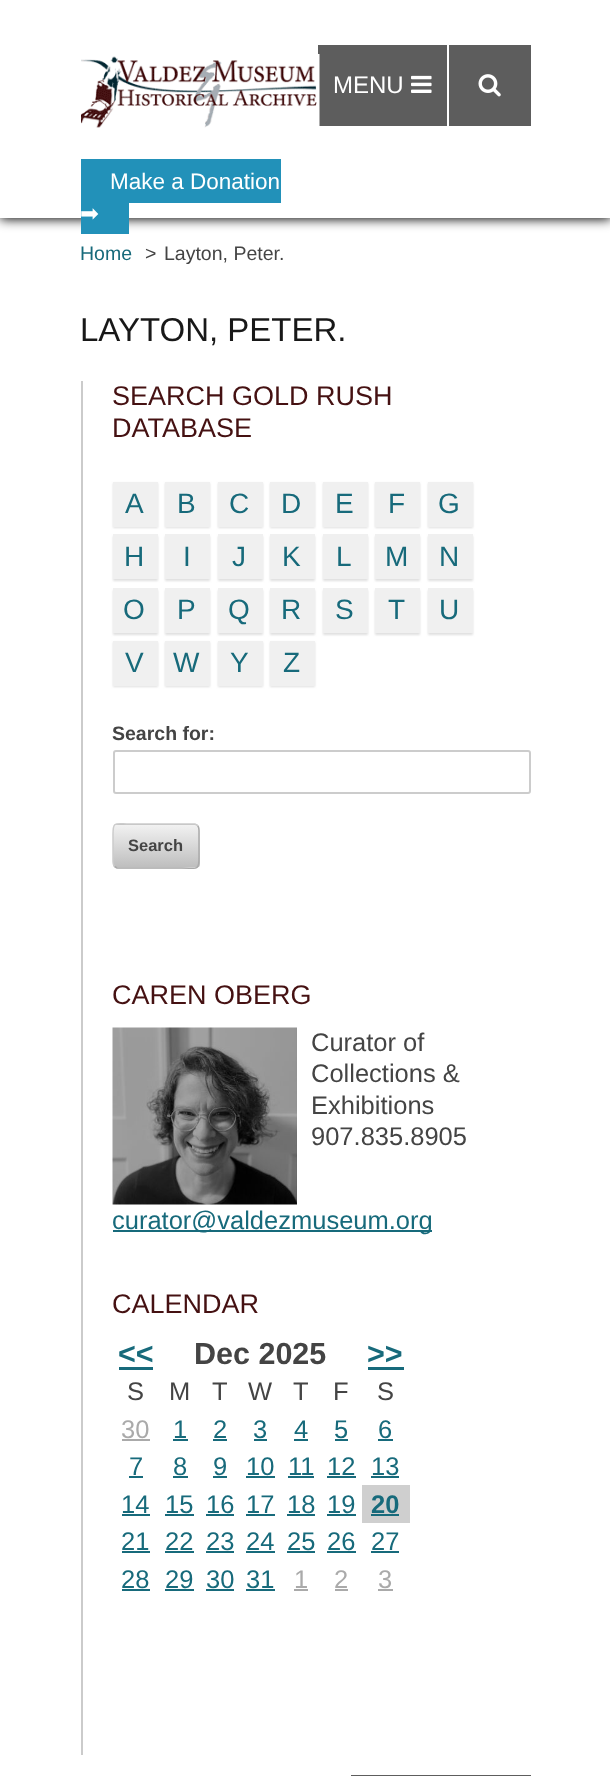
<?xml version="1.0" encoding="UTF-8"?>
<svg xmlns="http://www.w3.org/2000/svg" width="610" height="1776">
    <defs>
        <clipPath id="clip1"><path d="M 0 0 H 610 V 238 H 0 Z M 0 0 H 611 V 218 H 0 Z" clip-rule="evenodd"/></clipPath>
        <filter id="blur1" x="-50%" y="-200%" width="200%" height="500%"><feGaussianBlur stdDeviation="6"/></filter>
        <filter id="blur2" x="-50%" y="-200%" width="200%" height="500%"><feGaussianBlur stdDeviation="1"/></filter>
        <clipPath id="clip2"><rect x="113" y="824" width="87" height="45" rx="5"/></clipPath>
        <linearGradient id="g1" gradientUnits="userSpaceOnUse" x1="156" y1="783" x2="156" y2="825"><stop offset="0" stop-color="#FFFFFF" stop-opacity="0.2"/><stop offset="1" stop-color="#000000" stop-opacity="0.2"/></linearGradient>
        <linearGradient id="g2" gradientUnits="userSpaceOnUse" x1="156" y1="825" x2="156" y2="867"><stop offset="0" stop-color="#FFFFFF" stop-opacity="0.2"/><stop offset="1" stop-color="#000000" stop-opacity="0.2"/></linearGradient>
    </defs>
    <rect width="100%" height="100%" fill="#FFFFFF"/>
    <g clip-path="url(#clip1)">
        <rect x="0" y="2" width="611" height="217" fill="#000000" filter="url(#blur1)"/>
    </g>
    <rect x="318" y="45" width="129" height="81" fill="#5D5D5D"/>
    <text x="333" y="93" font-family="Liberation Sans" font-size="24" fill="#FFFFFF">MENU</text>
    <image x="411" y="75" width="21" height="18" href="img_01.png"/>
    <rect x="449" y="45" width="82" height="81" fill="#5D5D5D"/>
    <image x="478" y="74" width="23" height="23" href="img_02.png"/>
    <image x="81" y="54" width="239" height="74" href="img_03.png"/>
    <rect x="81" y="159" width="200" height="44" fill="#2291B9"/>
    <text x="110" y="189" font-family="Liberation Sans" font-size="22.5" fill="#FFFFFF">Make a Donation</text>
    <rect x="81" y="203" width="48" height="31" fill="#2291B9"/>
    <text x="80" y="221" font-family="DejaVu Sans" font-size="22.5" fill="#FFFFFF">➡</text>
    <text x="80" y="260" font-family="Liberation Sans" font-size="19.5" fill="#176A7B">Home</text>
    <text x="145" y="260" font-family="Liberation Sans" font-size="19.5" fill="#444444">&gt;</text>
    <text x="164" y="260" font-family="Liberation Sans" font-size="19.5" fill="#444444">Layton, Peter.</text>
    <text x="80" y="341" font-family="Liberation Sans" font-size="33" fill="#181818">LAYTON, PETER.</text>
    <rect x="81" y="381" width="2" height="1374" fill="#CBCBCB"/>
    <text font-family="Liberation Sans" font-size="27" fill="#451112">
        <tspan x="112" y="405">SEARCH GOLD RUSH</tspan>
        <tspan x="112" y="437">DATABASE</tspan>
    </text>
    <rect x="113" y="483" width="45" height="45" fill="#E0E0E0" filter="url(#blur2)"/>
    <rect x="113" y="482" width="45" height="45" fill="#F0F0F0"/>
    <text x="125" y="513" font-family="Liberation Sans" font-size="28" fill="#176A7B">A</text>
    <rect x="165" y="483" width="45" height="45" fill="#E0E0E0" filter="url(#blur2)"/>
    <rect x="165" y="482" width="45" height="45" fill="#F0F0F0"/>
    <text x="177" y="513" font-family="Liberation Sans" font-size="28" fill="#176A7B">B</text>
    <rect x="218" y="483" width="45" height="45" fill="#E0E0E0" filter="url(#blur2)"/>
    <rect x="218" y="482" width="45" height="45" fill="#F0F0F0"/>
    <text x="229" y="513" font-family="Liberation Sans" font-size="28" fill="#176A7B">C</text>
    <rect x="270" y="483" width="45" height="45" fill="#E0E0E0" filter="url(#blur2)"/>
    <rect x="270" y="482" width="45" height="45" fill="#F0F0F0"/>
    <text x="281" y="513" font-family="Liberation Sans" font-size="28" fill="#176A7B">D</text>
    <rect x="323" y="483" width="45" height="45" fill="#E0E0E0" filter="url(#blur2)"/>
    <rect x="323" y="482" width="45" height="45" fill="#F0F0F0"/>
    <text x="335" y="513" font-family="Liberation Sans" font-size="28" fill="#176A7B">E</text>
    <rect x="375" y="483" width="45" height="45" fill="#E0E0E0" filter="url(#blur2)"/>
    <rect x="375" y="482" width="45" height="45" fill="#F0F0F0"/>
    <text x="388" y="513" font-family="Liberation Sans" font-size="28" fill="#176A7B">F</text>
    <rect x="428" y="483" width="45" height="45" fill="#E0E0E0" filter="url(#blur2)"/>
    <rect x="428" y="482" width="45" height="45" fill="#F0F0F0"/>
    <text x="438" y="513" font-family="Liberation Sans" font-size="28" fill="#176A7B">G</text>
    <rect x="113" y="536" width="45" height="45" fill="#E0E0E0" filter="url(#blur2)"/>
    <rect x="113" y="534" width="45" height="45" fill="#F0F0F0"/>
    <text x="124" y="566" font-family="Liberation Sans" font-size="28" fill="#176A7B">H</text>
    <rect x="165" y="536" width="45" height="45" fill="#E0E0E0" filter="url(#blur2)"/>
    <rect x="165" y="534" width="45" height="45" fill="#F0F0F0"/>
    <text x="183" y="566" font-family="Liberation Sans" font-size="28" fill="#176A7B">I</text>
    <rect x="218" y="536" width="45" height="45" fill="#E0E0E0" filter="url(#blur2)"/>
    <rect x="218" y="534" width="45" height="45" fill="#F0F0F0"/>
    <text x="232" y="566" font-family="Liberation Sans" font-size="28" fill="#176A7B">J</text>
    <rect x="270" y="536" width="45" height="45" fill="#E0E0E0" filter="url(#blur2)"/>
    <rect x="270" y="534" width="45" height="45" fill="#F0F0F0"/>
    <text x="282" y="566" font-family="Liberation Sans" font-size="28" fill="#176A7B">K</text>
    <rect x="323" y="536" width="45" height="45" fill="#E0E0E0" filter="url(#blur2)"/>
    <rect x="323" y="534" width="45" height="45" fill="#F0F0F0"/>
    <text x="336" y="566" font-family="Liberation Sans" font-size="28" fill="#176A7B">L</text>
    <rect x="375" y="536" width="45" height="45" fill="#E0E0E0" filter="url(#blur2)"/>
    <rect x="375" y="534" width="45" height="45" fill="#F0F0F0"/>
    <text x="385" y="566" font-family="Liberation Sans" font-size="28" fill="#176A7B">M</text>
    <rect x="428" y="536" width="45" height="45" fill="#E0E0E0" filter="url(#blur2)"/>
    <rect x="428" y="534" width="45" height="45" fill="#F0F0F0"/>
    <text x="439" y="566" font-family="Liberation Sans" font-size="28" fill="#176A7B">N</text>
    <rect x="113" y="590" width="45" height="45" fill="#E0E0E0" filter="url(#blur2)"/>
    <rect x="113" y="588" width="45" height="45" fill="#F0F0F0"/>
    <text x="123" y="619" font-family="Liberation Sans" font-size="28" fill="#176A7B">O</text>
    <rect x="165" y="590" width="45" height="45" fill="#E0E0E0" filter="url(#blur2)"/>
    <rect x="165" y="588" width="45" height="45" fill="#F0F0F0"/>
    <text x="177" y="619" font-family="Liberation Sans" font-size="28" fill="#176A7B">P</text>
    <rect x="218" y="590" width="45" height="45" fill="#E0E0E0" filter="url(#blur2)"/>
    <rect x="218" y="588" width="45" height="45" fill="#F0F0F0"/>
    <text x="228" y="619" font-family="Liberation Sans" font-size="28" fill="#176A7B">Q</text>
    <rect x="270" y="590" width="45" height="45" fill="#E0E0E0" filter="url(#blur2)"/>
    <rect x="270" y="588" width="45" height="45" fill="#F0F0F0"/>
    <text x="281" y="619" font-family="Liberation Sans" font-size="28" fill="#176A7B">R</text>
    <rect x="323" y="590" width="45" height="45" fill="#E0E0E0" filter="url(#blur2)"/>
    <rect x="323" y="588" width="45" height="45" fill="#F0F0F0"/>
    <text x="335" y="619" font-family="Liberation Sans" font-size="28" fill="#176A7B">S</text>
    <rect x="375" y="590" width="45" height="45" fill="#E0E0E0" filter="url(#blur2)"/>
    <rect x="375" y="588" width="45" height="45" fill="#F0F0F0"/>
    <text x="388" y="619" font-family="Liberation Sans" font-size="28" fill="#176A7B">T</text>
    <rect x="428" y="590" width="45" height="45" fill="#E0E0E0" filter="url(#blur2)"/>
    <rect x="428" y="588" width="45" height="45" fill="#F0F0F0"/>
    <text x="439" y="619" font-family="Liberation Sans" font-size="28" fill="#176A7B">U</text>
    <rect x="113" y="642" width="45" height="45" fill="#E0E0E0" filter="url(#blur2)"/>
    <rect x="113" y="641" width="45" height="45" fill="#F0F0F0"/>
    <text x="125" y="672" font-family="Liberation Sans" font-size="28" fill="#176A7B">V</text>
    <rect x="165" y="642" width="45" height="45" fill="#E0E0E0" filter="url(#blur2)"/>
    <rect x="165" y="641" width="45" height="45" fill="#F0F0F0"/>
    <text x="173" y="672" font-family="Liberation Sans" font-size="28" fill="#176A7B">W</text>
    <rect x="218" y="642" width="45" height="45" fill="#E0E0E0" filter="url(#blur2)"/>
    <rect x="218" y="641" width="45" height="45" fill="#F0F0F0"/>
    <text x="230" y="672" font-family="Liberation Sans" font-size="28" fill="#176A7B">Y</text>
    <rect x="270" y="642" width="45" height="45" fill="#E0E0E0" filter="url(#blur2)"/>
    <rect x="270" y="641" width="45" height="45" fill="#F0F0F0"/>
    <text x="283" y="672" font-family="Liberation Sans" font-size="28" fill="#176A7B">Z</text>
    <text x="112" y="740" font-family="Liberation Sans" font-size="19.5" font-weight="700" fill="#444444">Search for:</text>
    <rect x="114" y="751" width="416" height="42" rx="2" fill="none" stroke="#CCCCCC" stroke-width="2"/>
    <rect x="113" y="824" width="87" height="45" rx="5" fill="#EEEEEE"/>
    <g clip-path="url(#clip2)">
        <rect x="113" y="824" width="87" height="1" fill="url(#g1)"/>
        <rect x="113" y="825" width="87" height="42" fill="url(#g2)"/>
    </g>
    <path d="M 197.5 825.5 C 199.5 827.5 199 832 199 834 V 858 C 199 871 197 868 182 868 H 117 L 114.5 866.5" fill="none" stroke="#AAAAAA" stroke-width="1.5"/>
    <path d="M 114.5 866.5 C 112.5 864.5 113 860 113 858 V 834 C 113 821 115 824 130 824 H 195 L 197.5 825.5" fill="none" stroke="#CCCCCC" stroke-width="1.5"/>
    <text x="128" y="851" font-family="Liberation Sans" font-size="16.5" font-weight="700" fill="#444444">Search</text>
    <text x="112" y="1004" font-family="Liberation Sans" font-size="27" fill="#451112">CAREN OBERG</text>
    <image x="112" y="1027" width="185" height="178" href="img_04.png"/>
    <text font-family="Liberation Sans" font-size="25.5" fill="#444444">
        <tspan x="311" y="1051">Curator of</tspan>
        <tspan x="311" y="1082">Collections &amp;</tspan>
        <tspan x="311" y="1114">Exhibitions</tspan>
        <tspan x="311" y="1145">907.835.8905</tspan>
    </text>
    <rect x="113" y="1230" width="319" height="2" fill="#176A7B"/>
    <text x="112" y="1229" font-family="Liberation Sans" font-size="25.5" fill="#176A7B">curator@valdezmuseum.org</text>
    <text x="112" y="1313" font-family="Liberation Sans" font-size="27" fill="#451112">CALENDAR</text>
    <text x="118" y="1364" font-family="Liberation Sans" font-size="30.5" font-weight="700" fill="#176A7B">&lt;&lt;</text>
    <rect x="119" y="1367" width="34" height="3" fill="#176A7B"/>
    <text x="194" y="1364" font-family="Liberation Sans" font-size="30.5" font-weight="700" fill="#444444">Dec 2025</text>
    <text x="367" y="1364" font-family="Liberation Sans" font-size="30.5" font-weight="700" fill="#176A7B">&gt;&gt;</text>
    <rect x="368" y="1367" width="36" height="3" fill="#176A7B"/>
    <text x="127" y="1400" font-family="Liberation Sans" font-size="25.5" fill="#444444">S</text>
    <text x="169" y="1400" font-family="Liberation Sans" font-size="25.5" fill="#444444">M</text>
    <text x="212" y="1400" font-family="Liberation Sans" font-size="25.5" fill="#444444">T</text>
    <text x="248" y="1400" font-family="Liberation Sans" font-size="25.5" fill="#444444">W</text>
    <text x="293" y="1400" font-family="Liberation Sans" font-size="25.5" fill="#444444">T</text>
    <text x="333" y="1400" font-family="Liberation Sans" font-size="25.5" fill="#444444">F</text>
    <text x="377" y="1400" font-family="Liberation Sans" font-size="25.5" fill="#444444">S</text>
    <text x="121" y="1438" font-family="Liberation Sans" font-size="25.5" fill="#AAAAAA">30</text>
    <rect x="122" y="1439" width="28" height="2" fill="#AAAAAA"/>
    <text x="173" y="1438" font-family="Liberation Sans" font-size="25.5" fill="#176A7B">1</text>
    <rect x="173" y="1439" width="15" height="2" fill="#176A7B"/>
    <text x="213" y="1438" font-family="Liberation Sans" font-size="25.5" fill="#176A7B">2</text>
    <rect x="213" y="1439" width="14" height="2" fill="#176A7B"/>
    <text x="253" y="1438" font-family="Liberation Sans" font-size="25.5" fill="#176A7B">3</text>
    <rect x="254" y="1439" width="13" height="2" fill="#176A7B"/>
    <text x="294" y="1438" font-family="Liberation Sans" font-size="25.5" fill="#176A7B">4</text>
    <rect x="294" y="1439" width="14" height="2" fill="#176A7B"/>
    <text x="334" y="1438" font-family="Liberation Sans" font-size="25.5" fill="#176A7B">5</text>
    <rect x="335" y="1439" width="13" height="2" fill="#176A7B"/>
    <text x="378" y="1438" font-family="Liberation Sans" font-size="25.5" fill="#176A7B">6</text>
    <rect x="378" y="1439" width="15" height="2" fill="#176A7B"/>
    <text x="129" y="1475" font-family="Liberation Sans" font-size="25.5" fill="#176A7B">7</text>
    <rect x="129" y="1476" width="14" height="2" fill="#176A7B"/>
    <text x="173" y="1475" font-family="Liberation Sans" font-size="25.5" fill="#176A7B">8</text>
    <rect x="173" y="1476" width="15" height="2" fill="#176A7B"/>
    <text x="213" y="1475" font-family="Liberation Sans" font-size="25.5" fill="#176A7B">9</text>
    <rect x="213" y="1476" width="14" height="2" fill="#176A7B"/>
    <text x="246" y="1475" font-family="Liberation Sans" font-size="25.5" fill="#176A7B">10</text>
    <rect x="246" y="1476" width="29" height="2" fill="#176A7B"/>
    <text x="288" y="1475" font-family="Liberation Sans" font-size="25.5" fill="#176A7B">11</text>
    <rect x="288" y="1476" width="26" height="2" fill="#176A7B"/>
    <text x="327" y="1475" font-family="Liberation Sans" font-size="25.5" fill="#176A7B">12</text>
    <rect x="327" y="1476" width="29" height="2" fill="#176A7B"/>
    <text x="371" y="1475" font-family="Liberation Sans" font-size="25.5" fill="#176A7B">13</text>
    <rect x="371" y="1476" width="28" height="2" fill="#176A7B"/>
    <text x="121" y="1513" font-family="Liberation Sans" font-size="25.5" fill="#176A7B">14</text>
    <rect x="122" y="1514" width="28" height="2" fill="#176A7B"/>
    <text x="165" y="1513" font-family="Liberation Sans" font-size="25.5" fill="#176A7B">15</text>
    <rect x="165" y="1514" width="29" height="2" fill="#176A7B"/>
    <text x="206" y="1513" font-family="Liberation Sans" font-size="25.5" fill="#176A7B">16</text>
    <rect x="206" y="1514" width="28" height="2" fill="#176A7B"/>
    <text x="246" y="1513" font-family="Liberation Sans" font-size="25.5" fill="#176A7B">17</text>
    <rect x="246" y="1514" width="29" height="2" fill="#176A7B"/>
    <text x="287" y="1513" font-family="Liberation Sans" font-size="25.5" fill="#176A7B">18</text>
    <rect x="287" y="1514" width="28" height="2" fill="#176A7B"/>
    <text x="327" y="1513" font-family="Liberation Sans" font-size="25.5" fill="#176A7B">19</text>
    <rect x="327" y="1514" width="29" height="2" fill="#176A7B"/>
    <rect x="362" y="1485" width="48" height="38" fill="#CFCFCF"/>
    <text x="371" y="1513" font-family="Liberation Sans" font-size="25.5" font-weight="700" fill="#176A7B">20</text>
    <rect x="371" y="1514" width="28" height="2" fill="#176A7B"/>
    <text x="121" y="1550" font-family="Liberation Sans" font-size="25.5" fill="#176A7B">21</text>
    <rect x="122" y="1551" width="28" height="2" fill="#176A7B"/>
    <text x="165" y="1550" font-family="Liberation Sans" font-size="25.5" fill="#176A7B">22</text>
    <rect x="165" y="1551" width="29" height="2" fill="#176A7B"/>
    <text x="206" y="1550" font-family="Liberation Sans" font-size="25.5" fill="#176A7B">23</text>
    <rect x="206" y="1551" width="28" height="2" fill="#176A7B"/>
    <text x="246" y="1550" font-family="Liberation Sans" font-size="25.5" fill="#176A7B">24</text>
    <rect x="246" y="1551" width="29" height="2" fill="#176A7B"/>
    <text x="287" y="1550" font-family="Liberation Sans" font-size="25.5" fill="#176A7B">25</text>
    <rect x="287" y="1551" width="28" height="2" fill="#176A7B"/>
    <text x="327" y="1550" font-family="Liberation Sans" font-size="25.5" fill="#176A7B">26</text>
    <rect x="327" y="1551" width="29" height="2" fill="#176A7B"/>
    <text x="371" y="1550" font-family="Liberation Sans" font-size="25.5" fill="#176A7B">27</text>
    <rect x="371" y="1551" width="28" height="2" fill="#176A7B"/>
    <text x="121" y="1588" font-family="Liberation Sans" font-size="25.5" fill="#176A7B">28</text>
    <rect x="122" y="1589" width="28" height="2" fill="#176A7B"/>
    <text x="165" y="1588" font-family="Liberation Sans" font-size="25.5" fill="#176A7B">29</text>
    <rect x="165" y="1589" width="29" height="2" fill="#176A7B"/>
    <text x="206" y="1588" font-family="Liberation Sans" font-size="25.5" fill="#176A7B">30</text>
    <rect x="206" y="1589" width="28" height="2" fill="#176A7B"/>
    <text x="246" y="1588" font-family="Liberation Sans" font-size="25.5" fill="#176A7B">31</text>
    <rect x="246" y="1589" width="29" height="2" fill="#176A7B"/>
    <text x="294" y="1588" font-family="Liberation Sans" font-size="25.5" fill="#AAAAAA">1</text>
    <rect x="294" y="1589" width="14" height="2" fill="#AAAAAA"/>
    <text x="334" y="1588" font-family="Liberation Sans" font-size="25.5" fill="#AAAAAA">2</text>
    <rect x="335" y="1589" width="13" height="2" fill="#AAAAAA"/>
    <text x="378" y="1588" font-family="Liberation Sans" font-size="25.5" fill="#AAAAAA">3</text>
    <rect x="378" y="1589" width="15" height="2" fill="#AAAAAA"/>
    <rect x="351" y="1775" width="180" height="1" fill="#5D5D5D"/>
</svg>
